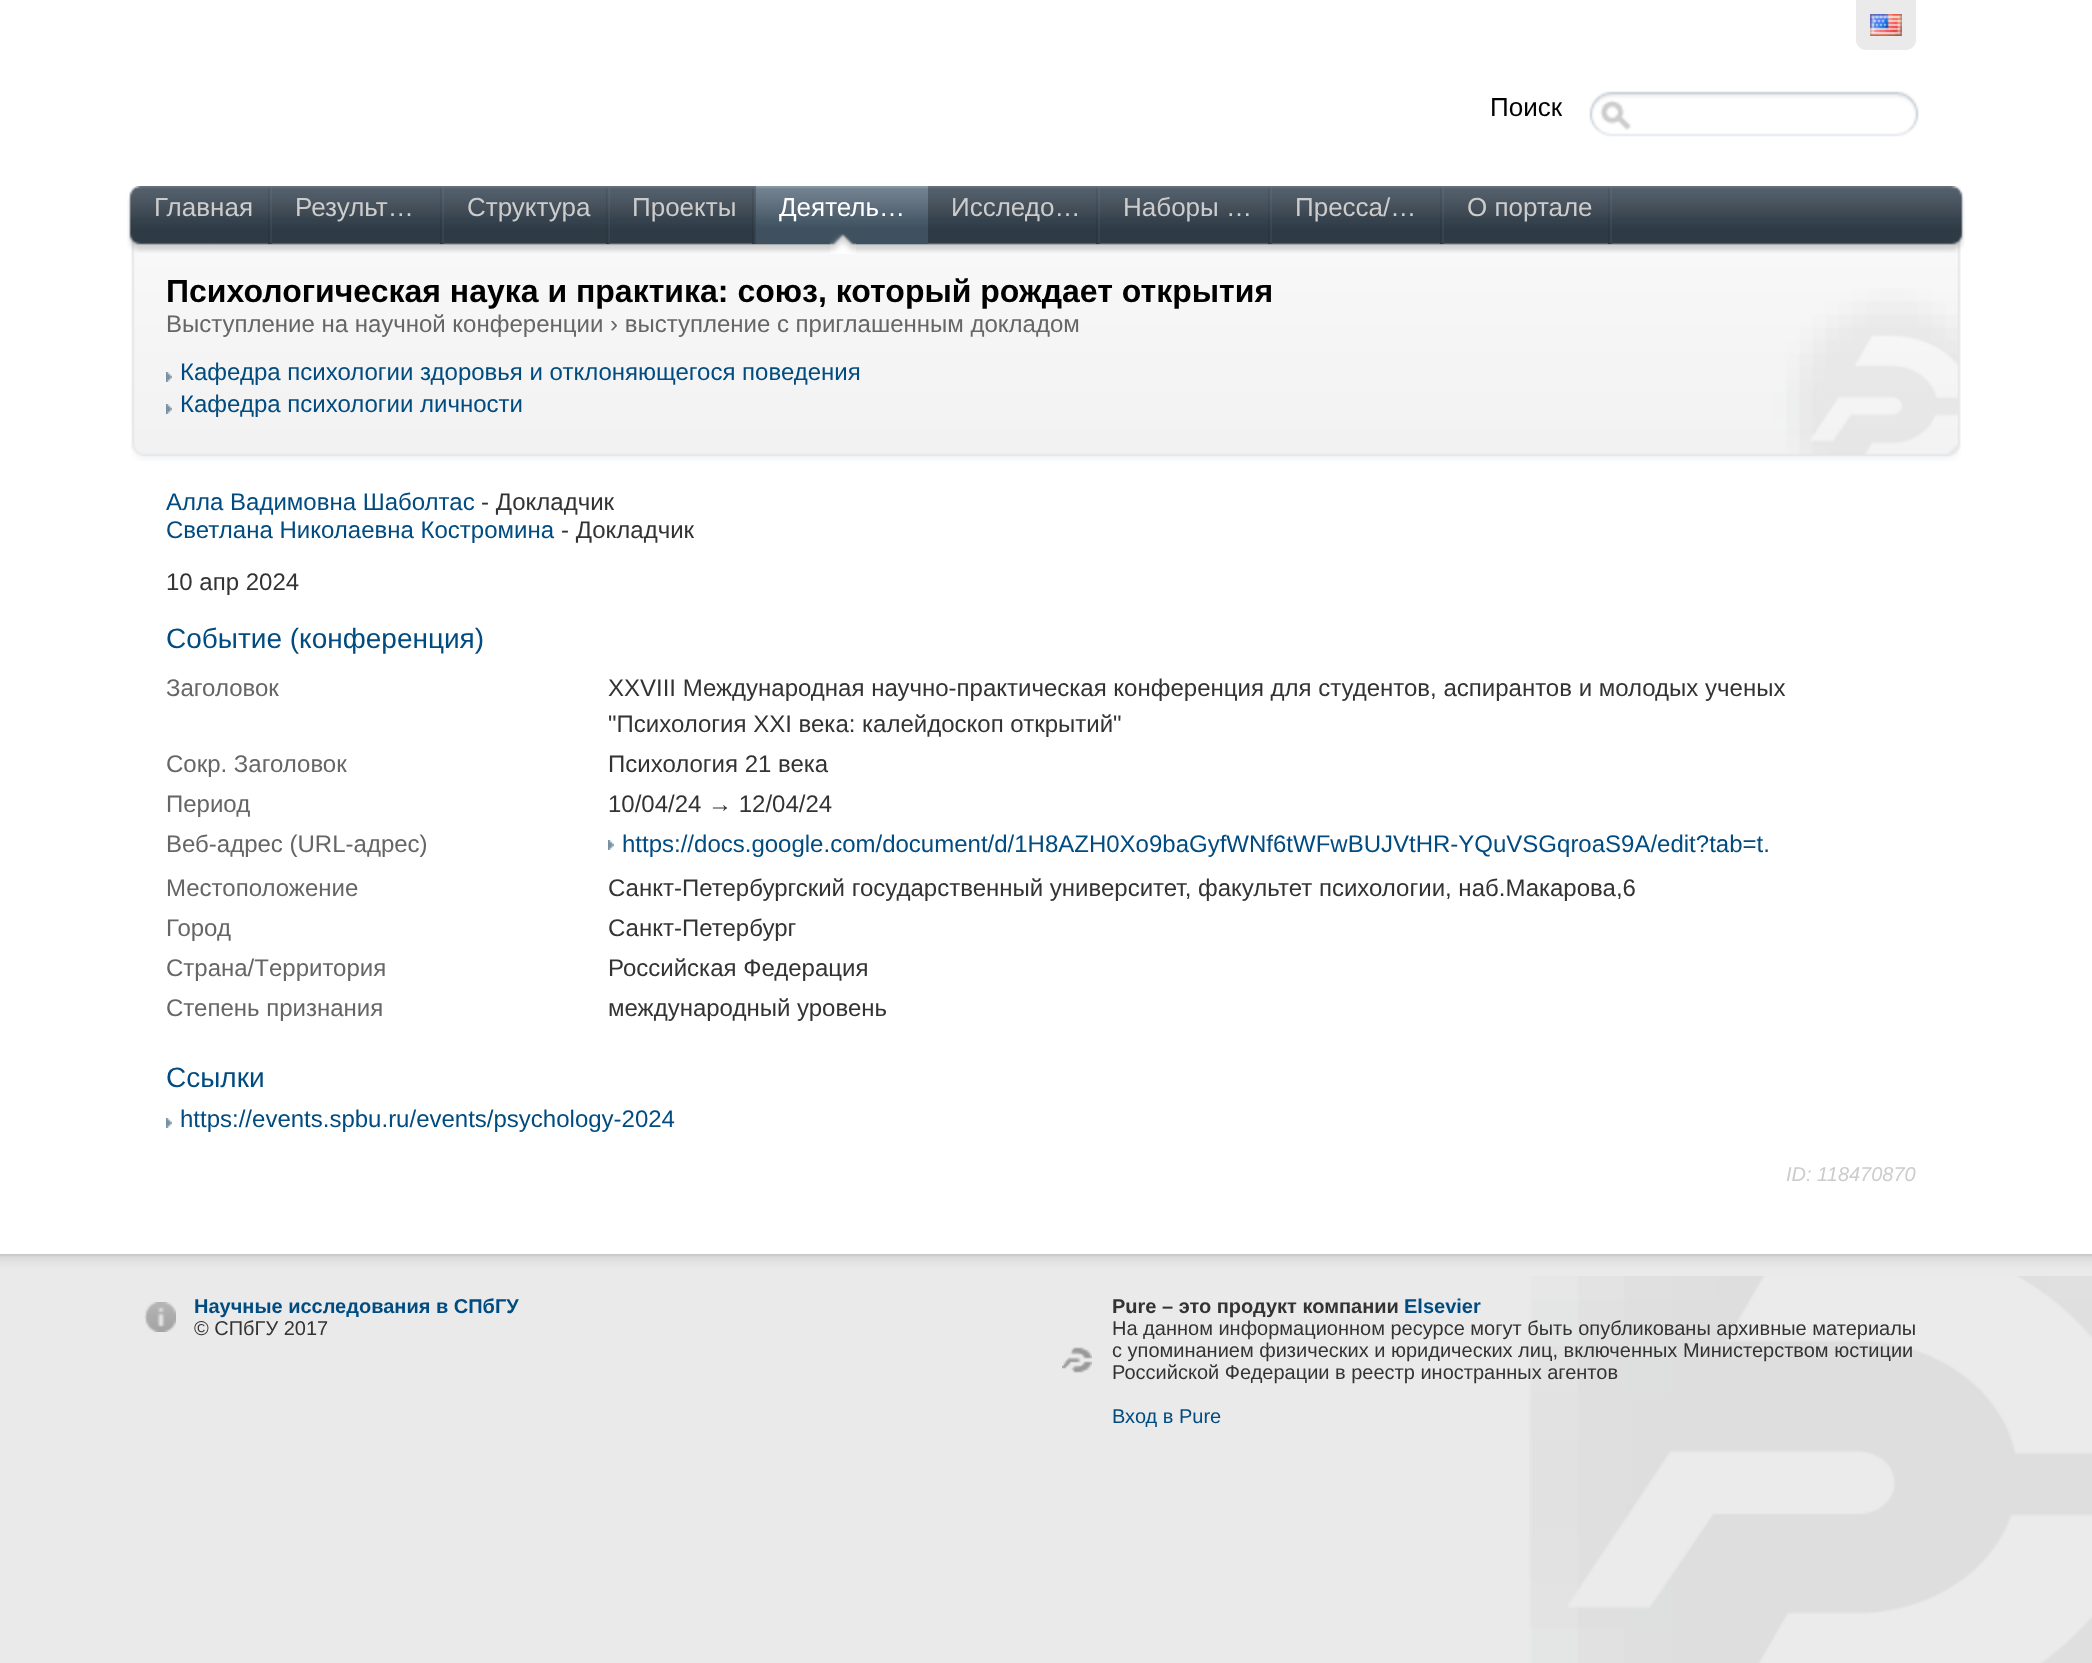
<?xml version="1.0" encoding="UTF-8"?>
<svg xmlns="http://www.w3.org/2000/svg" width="2092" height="1663">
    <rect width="100%" height="100%" fill="#EAEAEA"/>
    <image x="1529" y="1276" width="563" height="387" href="img_01.png"/>
    <rect x="0" y="0" width="2092" height="1254" fill="#FFFFFF"/>
    <path d="M 1856 0 H 1916 V 40 C 1916 45.5 1911.5 50 1906 50 H 1866 C 1860.5 50 1856 45.5 1856 40 Z" fill="#EAEAEA"/>
    <image x="1870" y="14" width="32" height="22" href="img_02.png"/>
    <text x="1490" y="116" font-family="Liberation Sans" font-size="26" fill="#000000">Поиск</text>
    <image x="1898" y="91" width="21" height="46" href="img_03.png"/>
    <image x="1589" y="91" width="309" height="46" href="img_04.png"/>
    <image x="131" y="234" width="1830" height="227" href="img_09.png"/>
    <image x="127" y="186" width="1838" height="67" href="img_05.png"/>
    <image x="268" y="188" width="4" height="56" href="img_06.png"/>
    <text x="154" y="216" font-family="Liberation Sans" font-size="26" fill="#CCCCCC">Главная</text>
    <image x="440" y="188" width="4" height="56" href="img_06.png"/>
    <text x="295" y="216" font-family="Liberation Sans" font-size="26" fill="#CCCCCC">Результ…</text>
    <image x="606" y="188" width="4" height="56" href="img_06.png"/>
    <text x="467" y="216" font-family="Liberation Sans" font-size="26" fill="#CCCCCC">Структура</text>
    <image x="752" y="188" width="4" height="56" href="img_06.png"/>
    <text x="632" y="216" font-family="Liberation Sans" font-size="26" fill="#CCCCCC">Проекты</text>
    <image x="756" y="186" width="172" height="58" href="img_07.png"/>
    <image x="830" y="234" width="26" height="20" href="img_08.png"/>
    <text x="779" y="216" font-family="Liberation Sans" font-size="26" fill="#FFFFFF">Деятель…</text>
    <image x="1096" y="188" width="4" height="56" href="img_06.png"/>
    <text x="951" y="216" font-family="Liberation Sans" font-size="26" fill="#CCCCCC">Исследо…</text>
    <image x="1268" y="188" width="4" height="56" href="img_06.png"/>
    <text x="1123" y="216" font-family="Liberation Sans" font-size="26" fill="#CCCCCC">Наборы …</text>
    <image x="1440" y="188" width="4" height="56" href="img_06.png"/>
    <text x="1295" y="216" font-family="Liberation Sans" font-size="26" fill="#CCCCCC">Пресса/…</text>
    <image x="1608" y="188" width="4" height="56" href="img_06.png"/>
    <text x="1467" y="216" font-family="Liberation Sans" font-size="26" fill="#CCCCCC">О портале</text>
    <text x="166" y="302" font-family="Liberation Sans" font-size="32" font-weight="700" fill="#000000">Психологическая наука и практика: союз, который рождает открытия</text>
    <text x="166" y="332" font-family="Liberation Sans" font-size="24" fill="#666666">Выступление на научной конференции › выступление с приглашенным докладом</text>
    <image x="166" y="372" width="6" height="10" href="img_10.png"/>
    <text x="180" y="380" font-family="Liberation Sans" font-size="24" fill="#004B80">Кафедра психологии здоровья и отклоняющегося поведения</text>
    <image x="166" y="404" width="6" height="10" href="img_11.png"/>
    <text x="180" y="412" font-family="Liberation Sans" font-size="24" fill="#004B80">Кафедра психологии личности</text>
    <text x="166" y="510" font-family="Liberation Sans" font-size="24" fill="#004B80">Алла Вадимовна Шаболтас</text>
    <text x="481" y="510" font-family="Liberation Sans" font-size="24" fill="#333333">- Докладчик</text>
    <text x="166" y="538" font-family="Liberation Sans" font-size="24" fill="#004B80">Светлана Николаевна Костромина</text>
    <text x="561" y="538" font-family="Liberation Sans" font-size="24" fill="#333333">- Докладчик</text>
    <text x="166" y="590" font-family="Liberation Sans" font-size="24" fill="#333333">10 апр 2024</text>
    <text x="166" y="648" font-family="Liberation Sans" font-size="28" fill="#004B80">Событие (конференция)</text>
    <text x="166" y="696" font-family="Liberation Sans" font-size="24" fill="#666666">Заголовок</text>
    <text font-family="Liberation Sans" font-size="24" fill="#333333">
        <tspan x="608" y="696">XXVIII Международная научно-практическая конференция для студентов, аспирантов и молодых ученых</tspan>
        <tspan x="608" y="732">"Психология XXI века: калейдоскоп открытий"</tspan>
    </text>
    <text x="166" y="772" font-family="Liberation Sans" font-size="24" fill="#666666">Сокр. Заголовок</text>
    <text x="608" y="772" font-family="Liberation Sans" font-size="24" fill="#333333">Психология 21 века</text>
    <text x="166" y="812" font-family="Liberation Sans" font-size="24" fill="#666666">Период</text>
    <text x="608" y="812" font-family="Liberation Sans" font-size="24" fill="#333333">10/04/24 → 12/04/24</text>
    <text x="166" y="852" font-family="Liberation Sans" font-size="24" fill="#666666">Веб-адрес (URL-адрес)</text>
    <image x="608" y="840" width="6" height="10" href="img_12.png"/>
    <text x="622" y="852" font-family="Liberation Sans" font-size="24" fill="#004B80">https://docs.google.com/document/d/1H8AZH0Xo9baGyfWNf6tWFwBUJVtHR-YQuVSGqroaS9A/edit?tab=t.</text>
    <text x="166" y="896" font-family="Liberation Sans" font-size="24" fill="#666666">Местоположение</text>
    <text x="608" y="896" font-family="Liberation Sans" font-size="24" fill="#333333">Санкт-Петербургский государственный университет, факультет психологии, наб.Макарова,6</text>
    <text x="166" y="936" font-family="Liberation Sans" font-size="24" fill="#666666">Город</text>
    <text x="608" y="936" font-family="Liberation Sans" font-size="24" fill="#333333">Санкт-Петербург</text>
    <text x="166" y="976" font-family="Liberation Sans" font-size="24" fill="#666666">Страна/Tерритория</text>
    <text x="608" y="976" font-family="Liberation Sans" font-size="24" fill="#333333">Российская Федерация</text>
    <text x="166" y="1016" font-family="Liberation Sans" font-size="24" fill="#666666">Степень признания</text>
    <text x="608" y="1016" font-family="Liberation Sans" font-size="24" fill="#333333">международный уровень</text>
    <text x="166" y="1087" font-family="Liberation Sans" font-size="28" fill="#004B80">Ссылки</text>
    <image x="166" y="1118" width="6" height="10" href="img_12.png"/>
    <text x="180" y="1127" font-family="Liberation Sans" font-size="24" fill="#004B80">https://events.spbu.ru/events/psychology-2024</text>
    <text x="1786" y="1181" font-family="Liberation Sans" font-size="20" font-style="italic" fill="#CCCCCC">ID: 118470870</text>
    <image x="0" y="1254" width="2092" height="22" href="img_13.png"/>
    <image x="144" y="1302" width="32" height="30" href="img_14.png"/>
    <text x="194" y="1313" font-family="Liberation Sans" font-size="20" font-weight="700" fill="#004B80">Научные исследования в СПбГУ</text>
    <text x="194" y="1335" font-family="Liberation Sans" font-size="20" fill="#333333">© СПбГУ 2017</text>
    <image x="1062" y="1347" width="30" height="26" href="img_15.png"/>
    <text x="1112" y="1313" font-family="Liberation Sans" font-size="20" font-weight="700" fill="#333333">Pure – это продукт компании</text>
    <text x="1404" y="1313" font-family="Liberation Sans" font-size="20" font-weight="700" fill="#004B80">Elsevier</text>
    <text font-family="Liberation Sans" font-size="20" fill="#333333">
        <tspan x="1112" y="1335">На данном информационном ресурсе могут быть опубликованы архивные материалы</tspan>
        <tspan x="1112" y="1357">с упоминанием физических и юридических лиц, включенных Министерством юстиции</tspan>
        <tspan x="1112" y="1379">Российской Федерации в реестр иностранных агентов</tspan>
    </text>
    <text x="1112" y="1423" font-family="Liberation Sans" font-size="20" fill="#004B80">Вход в Pure</text>
</svg>
